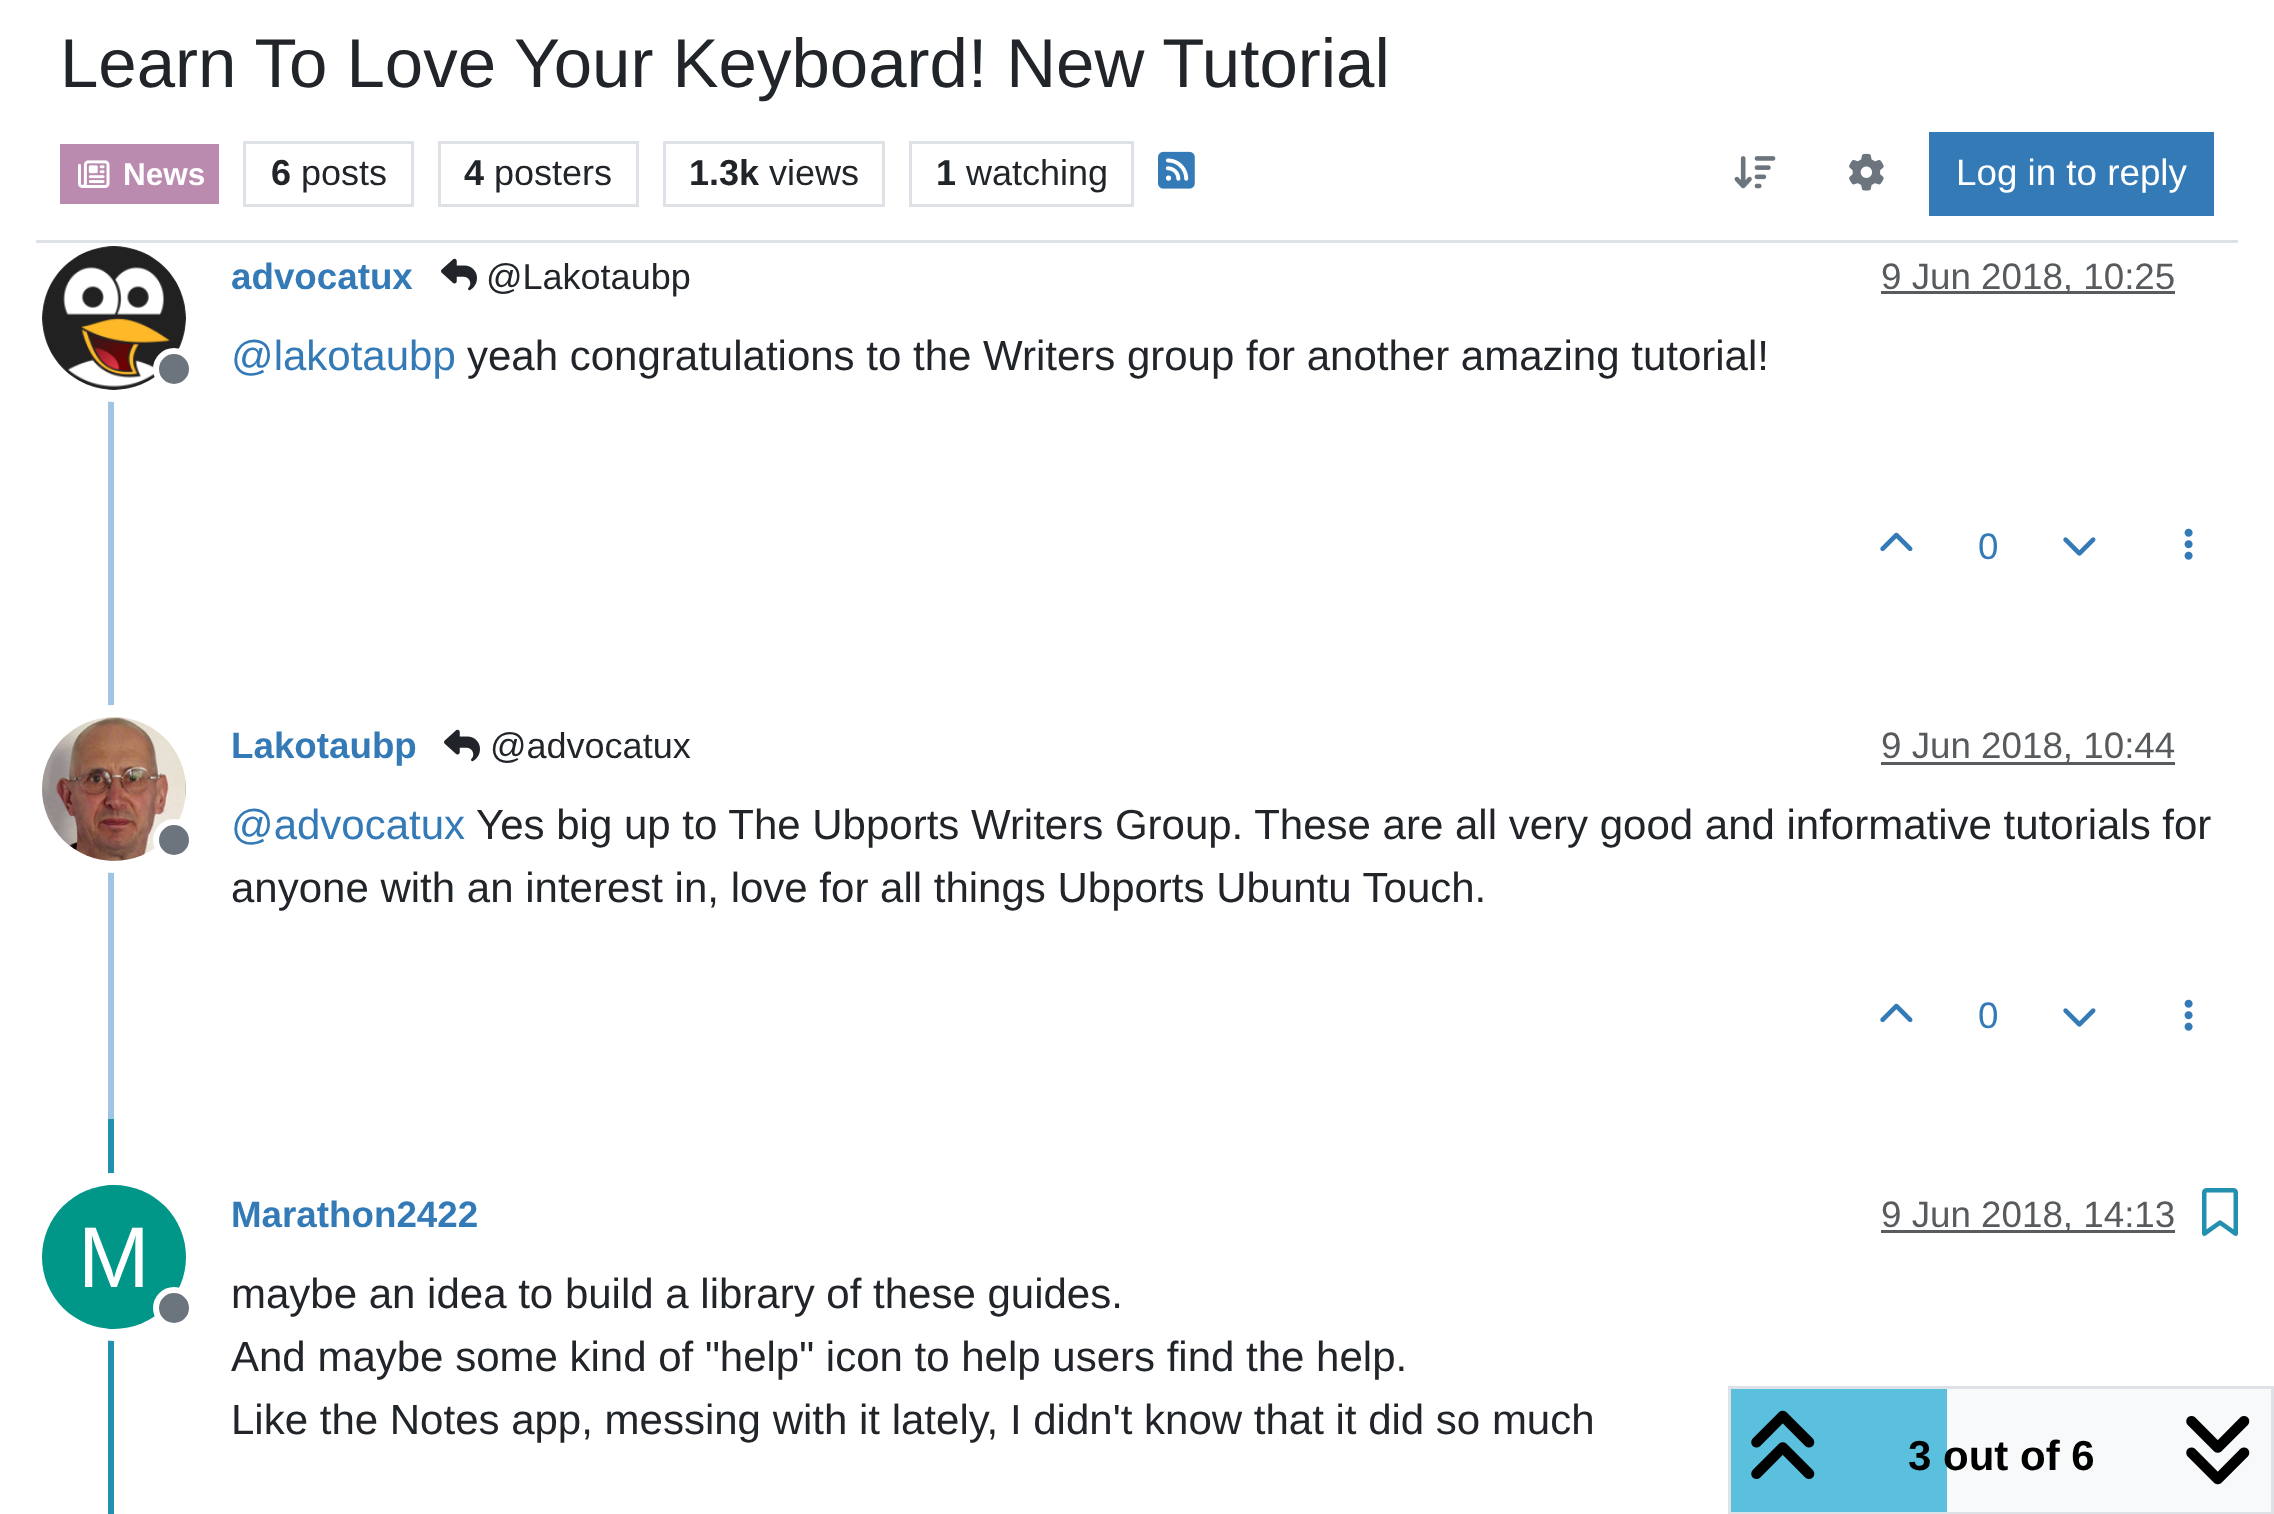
<?xml version="1.0" encoding="UTF-8"?>
<svg xmlns="http://www.w3.org/2000/svg" width="2274" height="1514">
    <rect width="100%" height="100%" fill="#FFFFFF"/>
    <rect x="108" y="246" width="6" height="873" fill="#A0C4E4"/>
    <circle cx="114" cy="318" r="78" fill="none" stroke="#FFFFFF" stroke-width="12"/>
    <rect x="36" y="240" width="2202" height="3" fill="#DEE2E6"/>
    <text x="60" y="87" font-family="Liberation Sans" font-size="69" fill="#212529">Learn To Love Your Keyboard! New Tutorial</text>
    <rect x="60" y="144" width="159" height="60" fill="#BA8BAF"/>
    <image x="78" y="160" width="32" height="28" href="img_01.png"/>
    <text x="123" y="185" font-family="Liberation Sans" font-size="31.5" font-weight="700" fill="#FFFFFF">News</text>
    <rect x="244.5" y="142.5" width="168" height="63" fill="none" stroke="#DEE2E6" stroke-width="3"/>
    <text x="271" y="185" font-family="Liberation Sans" font-size="36" font-weight="700" fill="#212529">6</text>
    <text x="301" y="185" font-family="Liberation Sans" font-size="36" fill="#212529">posts</text>
    <rect x="439.5" y="142.5" width="198" height="63" fill="none" stroke="#DEE2E6" stroke-width="3"/>
    <text x="464" y="185" font-family="Liberation Sans" font-size="36" font-weight="700" fill="#212529">4</text>
    <text x="494" y="185" font-family="Liberation Sans" font-size="36" fill="#212529">posters</text>
    <rect x="664.5" y="142.5" width="219" height="63" fill="none" stroke="#DEE2E6" stroke-width="3"/>
    <text x="689" y="185" font-family="Liberation Sans" font-size="36" font-weight="700" fill="#212529">1.3k</text>
    <text x="769" y="185" font-family="Liberation Sans" font-size="36" fill="#212529">views</text>
    <rect x="910.5" y="142.5" width="222" height="63" fill="none" stroke="#DEE2E6" stroke-width="3"/>
    <text x="936" y="185" font-family="Liberation Sans" font-size="36" font-weight="700" fill="#212529">1</text>
    <text x="966" y="185" font-family="Liberation Sans" font-size="36" fill="#212529">watching</text>
    <image x="1158" y="151" width="37" height="38" href="img_02.png"/>
    <image x="1734" y="156" width="42" height="33" href="img_03.png"/>
    <image x="1849" y="153" width="35" height="38" href="img_04.png"/>
    <rect x="1929" y="132" width="285" height="84" fill="#337AB7"/>
    <text x="1956" y="185" font-family="Liberation Sans" font-size="36.75" fill="#FFFFFF">Log in to reply</text>
    <image x="42" y="246" width="144" height="144" href="img_05.png"/>
    <circle cx="174" cy="369" r="18" fill="#6C757D" stroke="#FFFFFF" stroke-width="6"/>
    <text x="231" y="289" font-family="Liberation Sans" font-size="36.75" font-weight="700" fill="#337AB7">advocatux</text>
    <image x="441" y="258" width="36" height="33" href="img_06.png"/>
    <text x="486" y="289" font-family="Liberation Sans" font-size="36" fill="#212529">@Lakotaubp</text>
    <rect x="1881" y="291" width="294" height="3" fill="#595C5F"/>
    <text x="1881" y="289" font-family="Liberation Sans" font-size="36.75" fill="#585B5E">9 Jun 2018, 10:25</text>
    <text x="231" y="370" font-family="Liberation Sans" font-size="42" fill="#337AB7">@lakotaubp</text>
    <text x="467" y="370" font-family="Liberation Sans" font-size="42" fill="#212529">yeah congratulations to the Writers group for another amazing tutorial!</text>
    <image x="1880" y="532" width="33" height="20" href="img_07.png"/>
    <text x="1978" y="559" font-family="Liberation Sans" font-size="36.75" fill="#337AB7">0</text>
    <image x="2063" y="537" width="33" height="19" href="img_08.png"/>
    <image x="2184" y="528" width="9" height="32" href="img_09.png"/>
    <circle cx="114" cy="789" r="78" fill="none" stroke="#FFFFFF" stroke-width="12"/>
    <image x="42" y="717" width="144" height="144" href="img_10.png"/>
    <circle cx="174" cy="840" r="18" fill="#6C757D" stroke="#FFFFFF" stroke-width="6"/>
    <text x="231" y="758" font-family="Liberation Sans" font-size="36.75" font-weight="700" fill="#337AB7">Lakotaubp</text>
    <image x="444" y="729" width="36" height="33" href="img_06.png"/>
    <text x="490" y="758" font-family="Liberation Sans" font-size="36" fill="#212529">@advocatux</text>
    <rect x="1881" y="762" width="294" height="3" fill="#595C5F"/>
    <text x="1881" y="758" font-family="Liberation Sans" font-size="36.75" fill="#585B5E">9 Jun 2018, 10:44</text>
    <text x="231" y="839" font-family="Liberation Sans" font-size="42" fill="#337AB7">@advocatux</text>
    <text x="476" y="839" font-family="Liberation Sans" font-size="42" fill="#212529">Yes big up to The Ubports Writers Group. These are all very good and informative tutorials for</text>
    <text x="231" y="902" font-family="Liberation Sans" font-size="42" fill="#212529">anyone with an interest in, love for all things Ubports Ubuntu Touch.</text>
    <image x="1880" y="1003" width="33" height="20" href="img_07.png"/>
    <text x="1978" y="1028" font-family="Liberation Sans" font-size="36.75" fill="#337AB7">0</text>
    <image x="2063" y="1008" width="33" height="19" href="img_08.png"/>
    <image x="2184" y="999" width="9" height="32" href="img_09.png"/>
    <rect x="108" y="1119" width="6" height="395" fill="#2390B0"/>
    <text x="231" y="1227" font-family="Liberation Sans" font-size="36.75" font-weight="700" fill="#337AB7">Marathon2422</text>
    <rect x="1881" y="1230" width="294" height="3" fill="#595C5F"/>
    <text x="1881" y="1227" font-family="Liberation Sans" font-size="36.75" fill="#585B5E">9 Jun 2018, 14:13</text>
    <image x="2202" y="1188" width="36" height="48" href="img_11.png"/>
    <circle cx="114" cy="1257" r="78" fill="none" stroke="#FFFFFF" stroke-width="12"/>
    <circle cx="114" cy="1257" r="72" fill="#009688"/>
    <text x="78" y="1287" font-family="Liberation Sans" font-size="86" fill="#FFFFFF">M</text>
    <circle cx="174" cy="1308" r="18" fill="#6C757D" stroke="#FFFFFF" stroke-width="6"/>
    <text font-family="Liberation Sans" font-size="42" fill="#212529">
        <tspan x="231" y="1308">maybe an idea to build a library of these guides.</tspan>
        <tspan x="231" y="1371">And maybe some kind of "help" icon to help users find the help.</tspan>
        <tspan x="231" y="1434">Like the Notes app, messing with it lately, I didn't know that it did so much</tspan>
    </text>
    <rect x="1947" y="1389" width="324" height="123" fill="#F8F9FA"/>
    <rect x="1729.5" y="1387.5" width="543" height="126" fill="none" stroke="#DEE2E6" stroke-width="3"/>
    <rect x="1731" y="1389" width="216" height="123" fill="#5BC0DE"/>
    <image x="1751" y="1410" width="64" height="69" href="img_12.png"/>
    <text x="1908" y="1470" font-family="Liberation Sans" font-size="42" font-weight="700" fill="#000000">3 out of 6</text>
    <image x="2186" y="1416" width="64" height="69" href="img_13.png"/>
</svg>
